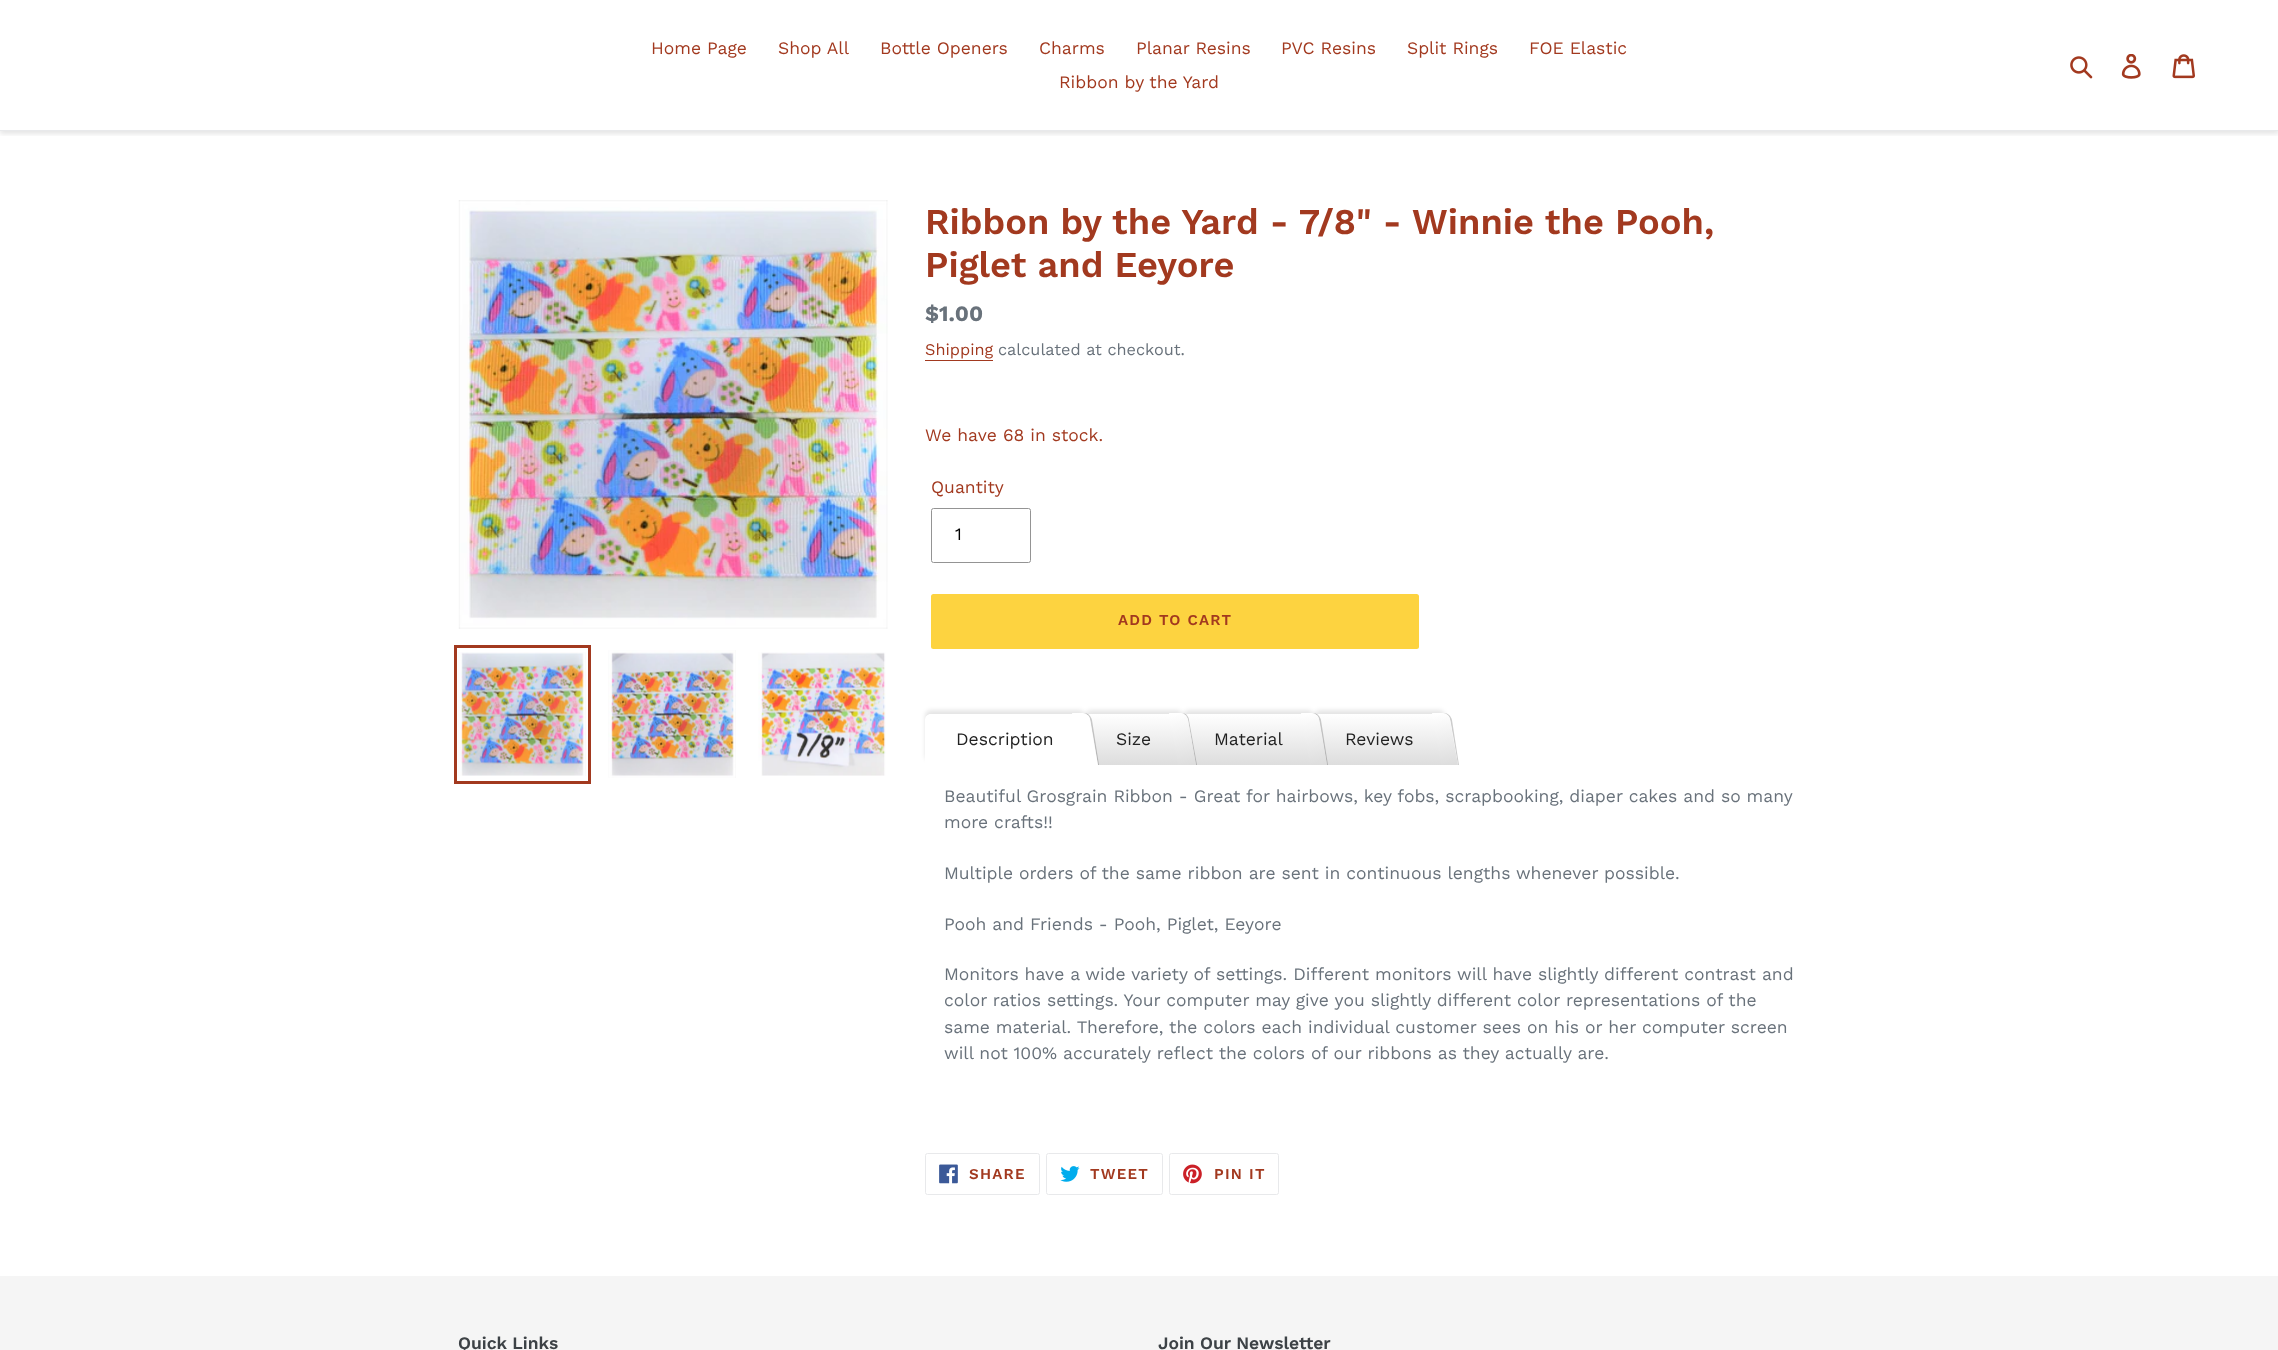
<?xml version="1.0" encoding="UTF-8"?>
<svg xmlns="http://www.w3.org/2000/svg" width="2278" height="1350">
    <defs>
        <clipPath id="clip1"><rect x="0" y="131" width="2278" height="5"/></clipPath>
        <filter id="blur1" x="-50%" y="-200%" width="200%" height="500%"><feGaussianBlur stdDeviation="2.5"/></filter>
        <filter id="blur2" x="-50%" y="-200%" width="200%" height="500%"><feGaussianBlur stdDeviation="2"/></filter>
        <linearGradient id="g1" gradientUnits="userSpaceOnUse" x1="1134" y1="714" x2="1134" y2="765"><stop offset="0" stop-color="#FFFFFF"/><stop offset="1" stop-color="#DDDDDD"/></linearGradient>
        <linearGradient id="g2" gradientUnits="userSpaceOnUse" x1="1248" y1="714" x2="1248" y2="765"><stop offset="0" stop-color="#FFFFFF"/><stop offset="1" stop-color="#DDDDDD"/></linearGradient>
        <linearGradient id="g3" gradientUnits="userSpaceOnUse" x1="1178" y1="713" x2="1187" y2="765"><stop offset="0" stop-color="#FFFFFF"/><stop offset="1" stop-color="#DDDDDD"/></linearGradient>
        <linearGradient id="g4" gradientUnits="userSpaceOnUse" x1="1379" y1="714" x2="1379" y2="765"><stop offset="0" stop-color="#FFFFFF"/><stop offset="1" stop-color="#DDDDDD"/></linearGradient>
        <linearGradient id="g5" gradientUnits="userSpaceOnUse" x1="1309" y1="713" x2="1318" y2="765"><stop offset="0" stop-color="#FFFFFF"/><stop offset="1" stop-color="#DDDDDD"/></linearGradient>
        <linearGradient id="g6" gradientUnits="userSpaceOnUse" x1="1440" y1="713" x2="1449" y2="765"><stop offset="0" stop-color="#FFFFFF"/><stop offset="1" stop-color="#DDDDDD"/></linearGradient>
    </defs>
    <rect width="100%" height="100%" fill="#FFFFFF"/>
    <g clip-path="url(#clip1)">
        <rect x="0" y="3" width="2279" height="131" fill="#000000" fill-opacity="0.1" filter="url(#blur1)"/>
    </g>
    <rect x="0" y="130" width="2278" height="1" fill="#E8E9EB"/>
    <text x="651" y="54" font-family="Work Sans" font-size="17.5" fill="#A2391F">Home Page</text>
    <text x="778" y="54" font-family="Work Sans" font-size="17.5" fill="#A2391F">Shop All</text>
    <text x="880" y="54" font-family="Work Sans" font-size="17.5" fill="#A2391F">Bottle Openers</text>
    <text x="1039" y="54" font-family="Work Sans" font-size="17.5" fill="#A2391F">Charms</text>
    <text x="1136" y="54" font-family="Work Sans" font-size="17.5" fill="#A2391F">Planar Resins</text>
    <text x="1281" y="54" font-family="Work Sans" font-size="17.5" fill="#A2391F">PVC Resins</text>
    <text x="1407" y="54" font-family="Work Sans" font-size="17.5" fill="#A2391F">Split Rings</text>
    <text x="1529" y="54" font-family="Work Sans" font-size="17.5" fill="#A2391F">FOE Elastic</text>
    <text x="1059" y="88" font-family="Work Sans" font-size="17.5" fill="#A2391F">Ribbon by the Yard</text>
    <image x="2070" y="56" width="23" height="23" href="img_01.png"/>
    <image x="2121" y="54" width="20" height="25" href="img_02.png"/>
    <image x="2172" y="54" width="23" height="25" href="img_03.png"/>
    <image x="458" y="200" width="430" height="429" href="img_04.png"/>
    <rect x="455.5" y="646.5" width="134" height="136" fill="none" stroke="#A2391F" stroke-width="3"/>
    <image x="458" y="652" width="128" height="124" href="img_05.png"/>
    <image x="608" y="650" width="128" height="128" href="img_06.png"/>
    <image x="758" y="652" width="128" height="124" href="img_07.png"/>
    <text font-family="Work Sans" font-size="36.25" font-weight="600" fill="#A2391F">
        <tspan x="925" y="234">Ribbon by the Yard - 7/8" - Winnie the Pooh,</tspan>
        <tspan x="925" y="277">Piglet and Eeyore</tspan>
    </text>
    <text x="925" y="321" font-family="Work Sans" font-size="22" font-weight="700" fill="#69727B">$1.00</text>
    <text x="925" y="355" font-family="Work Sans" font-size="16.25" fill="#A2391F">Shipping</text>
    <rect x="925" y="360" width="68" height="1" fill="#A2391F"/>
    <text x="998" y="355" font-family="Work Sans" font-size="16.25" fill="#69727B">calculated at checkout.</text>
    <text x="925" y="441" font-family="Work Sans" font-size="17.5" fill="#A2391F">We have 68 in stock.</text>
    <text x="931" y="493" font-family="Work Sans" font-size="17.5" fill="#A2391F">Quantity</text>
    <rect x="931.5" y="508.5" width="99" height="54" rx="2" fill="none" stroke="#949494"/>
    <text x="955" y="540" font-family="Work Sans" font-size="17.5" fill="#000000">1</text>
    <rect x="931" y="594" width="488" height="55" rx="2.5" fill="#FDD340"/>
    <text x="1118" y="625" font-family="Work Sans" font-size="15" font-weight="600" letter-spacing="1.25" fill="#A2391F">ADD TO CART</text>
    <rect x="1085" y="710" width="98" height="51" rx="6" fill="#000000" fill-opacity="0.1" filter="url(#blur2)"/>
    <path d="M 1091 714 H 1183 V 765 H 1085 V 720 C 1085 716.5 1087.5 714 1091 714 Z" fill="url(#g1)"/>
    <rect x="925" y="710" width="160" height="51" rx="6" fill="#000000" fill-opacity="0.1" filter="url(#blur2)"/>
    <path d="M 931 714 H 1085 V 765 H 925 V 720 C 925 716.5 927.5 714 931 714 Z" fill="#FFFFFF"/>
    <text x="956" y="745" font-family="Work Sans" font-size="17.5" fill="#222222">Description</text>
    <path d="M 1073 713 C 1092 713 1089 714 1093 735 L 1098 765 H 1082 H 1099 L 1092 720 C 1091 716 1088 713 1084 713 Z" fill="#000000" fill-opacity="0.2"/>
    <path d="M 1072 713 H 1083 C 1086 713 1090 716 1090 720 L 1098 765 H 1081 Z" fill="#FFFFFF"/>
    <text x="1116" y="745" font-family="Work Sans" font-size="17.5" fill="#222222">Size</text>
    <rect x="1183" y="710" width="131" height="51" rx="6" fill="#000000" fill-opacity="0.1" filter="url(#blur2)"/>
    <path d="M 1189 714 H 1314 V 765 H 1183 V 720 C 1183 716.5 1185.5 714 1189 714 Z" fill="url(#g2)"/>
    <path d="M 1171 713 H 1181 C 1184 713 1187 716 1188 720 L 1196 765 H 1180 H 1197 L 1189 720 C 1189 716 1185 713 1182 713 Z" fill="#000000" fill-opacity="0.2"/>
    <path d="M 1169 713 H 1181 C 1184 713 1187 716 1188 720 L 1196 765 H 1178 Z" fill="url(#g3)"/>
    <text x="1214" y="745" font-family="Work Sans" font-size="17.5" fill="#222222">Material</text>
    <rect x="1314" y="710" width="131" height="51" rx="6" fill="#000000" fill-opacity="0.1" filter="url(#blur2)"/>
    <path d="M 1320 714 H 1445 V 765 H 1314 V 720 C 1314 716.5 1316.5 714 1320 714 Z" fill="url(#g4)"/>
    <path d="M 1302 713 C 1321 713 1318 714 1322 735 L 1327 765 H 1311 H 1328 L 1321 720 C 1320 716 1317 713 1313 713 Z" fill="#000000" fill-opacity="0.2"/>
    <path d="M 1301 713 H 1312 C 1315 713 1319 716 1319 720 L 1327 765 H 1310 Z" fill="url(#g5)"/>
    <text x="1345" y="745" font-family="Work Sans" font-size="17.5" fill="#222222">Reviews</text>
    <path d="M 1433 713 C 1452 713 1449 714 1453 735 L 1458 765 H 1442 H 1459 L 1452 720 C 1451 716 1448 713 1444 713 Z" fill="#000000" fill-opacity="0.2"/>
    <path d="M 1432 713 H 1443 C 1446 713 1450 716 1450 720 L 1458 765 H 1441 Z" fill="url(#g6)"/>
    <text font-family="Work Sans" font-size="17.5" fill="#69727B">
        <tspan x="944" y="802">Beautiful Grosgrain Ribbon - Great for hairbows, key fobs, scrapbooking, diaper cakes and so many</tspan>
        <tspan x="944" y="828">more crafts!!</tspan>
    </text>
    <text x="944" y="879" font-family="Work Sans" font-size="17.5" fill="#69727B">Multiple orders of the same ribbon are sent in continuous lengths whenever possible.</text>
    <text x="944" y="930" font-family="Work Sans" font-size="17.5" fill="#69727B">Pooh and Friends - Pooh, Piglet, Eeyore</text>
    <text font-family="Work Sans" font-size="17.5" fill="#69727B">
        <tspan x="944" y="980">Monitors have a wide variety of settings. Different monitors will have slightly different contrast and</tspan>
        <tspan x="944" y="1006">color ratios settings. Your computer may give you slightly different color representations of the</tspan>
        <tspan x="944" y="1033">same material. Therefore, the colors each individual customer sees on his or her computer screen</tspan>
        <tspan x="944" y="1059">will not 100% accurately reflect the colors of our ribbons as they actually are.</tspan>
    </text>
    <rect x="925.5" y="1153.5" width="114" height="41" rx="2" fill="none" stroke="#E8E9EB"/>
    <image x="939" y="1164" width="19" height="20" href="img_08.png"/>
    <text x="969" y="1179" font-family="Work Sans" font-size="15" font-weight="600" letter-spacing="1.25" fill="#A2391F">SHARE</text>
    <rect x="1046.5" y="1153.5" width="116" height="41" rx="2" fill="none" stroke="#E8E9EB"/>
    <image x="1060" y="1166" width="20" height="16" href="img_09.png"/>
    <text x="1090" y="1179" font-family="Work Sans" font-size="15" font-weight="600" letter-spacing="1.25" fill="#A2391F">TWEET</text>
    <rect x="1169.5" y="1153.5" width="109" height="41" rx="2" fill="none" stroke="#E8E9EB"/>
    <image x="1183" y="1164" width="19" height="20" href="img_10.png"/>
    <text x="1214" y="1179" font-family="Work Sans" font-size="15" font-weight="600" letter-spacing="1.25" fill="#A2391F">PIN IT</text>
    <rect x="0" y="1276" width="2278" height="74" fill="#F5F5F5"/>
    <text x="458" y="1349" font-family="Work Sans" font-size="17.5" font-weight="600" fill="#3D4246">Quick Links</text>
    <text x="1158" y="1349" font-family="Work Sans" font-size="17.5" font-weight="600" fill="#3D4246">Join Our Newsletter</text>
</svg>
